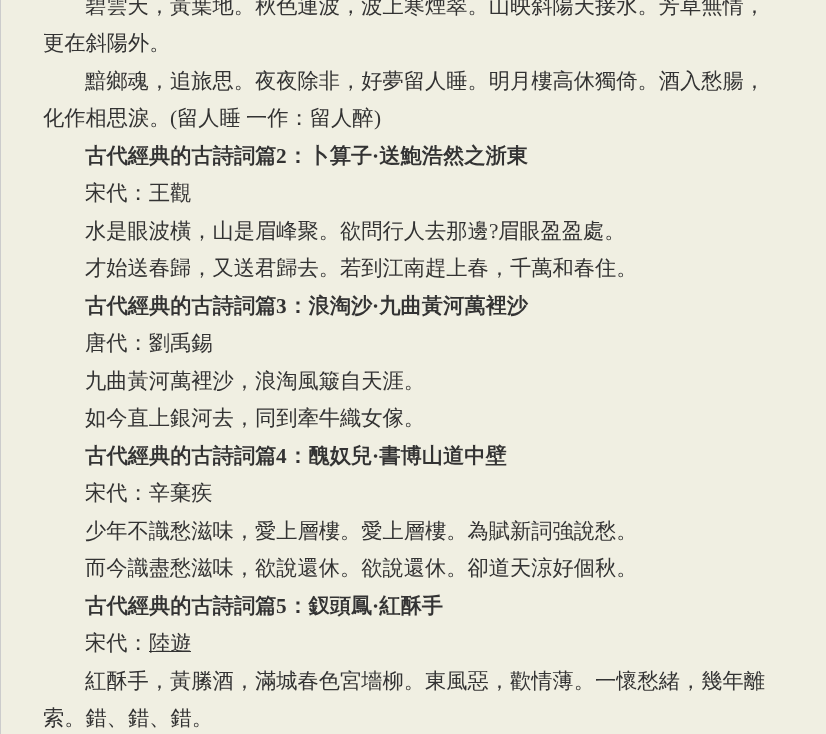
<?xml version="1.0" encoding="UTF-8"?>
<svg xmlns="http://www.w3.org/2000/svg" width="826" height="734">
    <rect width="100%" height="100%" fill="#F0EFE2"/>
    <rect x="0" y="0" width="1" height="734" fill="#CCCCCC"/>
    <text x="85" y="13" font-family="WenQuanYi Zen Hei" font-size="21.25" font-weight="500" fill="#333333">碧雲天，黃葉地。秋色連波，波上寒煙翠。山映斜陽天接水。芳草無情，</text>
    <text x="43" y="50" font-family="WenQuanYi Zen Hei" font-size="21.25" font-weight="500" fill="#333333">更在斜陽外。</text>
    <text x="85" y="88" font-family="WenQuanYi Zen Hei" font-size="21.25" font-weight="500" fill="#333333">黯鄉魂，追旅思。夜夜除非，好夢留人睡。明月樓高休獨倚。酒入愁腸，</text>
    <text x="43" y="125" font-family="WenQuanYi Zen Hei" font-size="21.25" font-weight="500" fill="#333333">化作相思淚。</text>
    <text x="170" y="125" font-family="Liberation Serif" font-size="21.25" fill="#333333">(</text>
    <text x="177" y="125" word-spacing="-1" font-family="WenQuanYi Zen Hei" font-size="21.25" font-weight="500" fill="#333333">留人睡 一作：留人醉</text>
    <text x="374" y="125" font-family="Liberation Serif" font-size="21.25" fill="#333333">)</text>
    <text x="85" y="163" font-family="WenQuanYi Zen Hei" font-size="21.25" font-weight="700" fill="#333333">古代經典的古詩詞篇</text>
    <text x="276" y="163" font-family="Liberation Serif" font-size="21.25" font-weight="700" fill="#333333">2</text>
    <text x="287" y="163" font-family="WenQuanYi Zen Hei" font-size="21.25" font-weight="700" fill="#333333">：卜算子</text>
    <text x="372" y="163" font-family="Liberation Serif" font-size="21.25" font-weight="700" fill="#333333">·</text>
    <text x="379" y="163" font-family="WenQuanYi Zen Hei" font-size="21.25" font-weight="700" fill="#333333">送鮑浩然之浙東</text>
    <text font-family="WenQuanYi Zen Hei" font-size="21.25" font-weight="500" fill="#333333">
        <tspan x="85" y="200">宋代：王觀</tspan>
        <tspan x="85" y="238">水是眼波橫，山是眉峰聚。欲問行人去那邊</tspan>
    </text>
    <text x="489" y="238" font-family="Liberation Serif" font-size="21.25" fill="#333333">?</text>
    <text x="498" y="238" font-family="WenQuanYi Zen Hei" font-size="21.25" font-weight="500" fill="#333333">眉眼盈盈處。</text>
    <text x="85" y="275" font-family="WenQuanYi Zen Hei" font-size="21.25" font-weight="500" fill="#333333">才始送春歸，又送君歸去。若到江南趕上春，千萬和春住。</text>
    <text x="85" y="313" font-family="WenQuanYi Zen Hei" font-size="21.25" font-weight="700" fill="#333333">古代經典的古詩詞篇</text>
    <text x="276" y="313" font-family="Liberation Serif" font-size="21.25" font-weight="700" fill="#333333">3</text>
    <text x="287" y="313" font-family="WenQuanYi Zen Hei" font-size="21.25" font-weight="700" fill="#333333">：浪淘沙</text>
    <text x="372" y="313" font-family="Liberation Serif" font-size="21.25" font-weight="700" fill="#333333">·</text>
    <text x="379" y="313" font-family="WenQuanYi Zen Hei" font-size="21.25" font-weight="700" fill="#333333">九曲黃河萬裡沙</text>
    <text font-family="WenQuanYi Zen Hei" font-size="21.25" font-weight="500" fill="#333333">
        <tspan x="85" y="350">唐代：劉禹錫</tspan>
        <tspan x="85" y="388">九曲黃河萬裡沙，浪淘風簸自天涯。</tspan>
        <tspan x="85" y="425">如今直上銀河去，同到牽牛織女傢。</tspan>
    </text>
    <text x="85" y="463" font-family="WenQuanYi Zen Hei" font-size="21.25" font-weight="700" fill="#333333">古代經典的古詩詞篇</text>
    <text x="276" y="463" font-family="Liberation Serif" font-size="21.25" font-weight="700" fill="#333333">4</text>
    <text x="287" y="463" font-family="WenQuanYi Zen Hei" font-size="21.25" font-weight="700" fill="#333333">：醜奴兒</text>
    <text x="372" y="463" font-family="Liberation Serif" font-size="21.25" font-weight="700" fill="#333333">·</text>
    <text x="379" y="463" font-family="WenQuanYi Zen Hei" font-size="21.25" font-weight="700" fill="#333333">書博山道中壁</text>
    <text font-family="WenQuanYi Zen Hei" font-size="21.25" font-weight="500" fill="#333333">
        <tspan x="85" y="500">宋代：辛棄疾</tspan>
        <tspan x="85" y="538">少年不識愁滋味，愛上層樓。愛上層樓。為賦新詞強說愁。</tspan>
        <tspan x="85" y="575">而今識盡愁滋味，欲說還休。欲說還休。卻道天涼好個秋。</tspan>
    </text>
    <text x="85" y="613" font-family="WenQuanYi Zen Hei" font-size="21.25" font-weight="700" fill="#333333">古代經典的古詩詞篇</text>
    <text x="276" y="613" font-family="Liberation Serif" font-size="21.25" font-weight="700" fill="#333333">5</text>
    <text x="287" y="613" font-family="WenQuanYi Zen Hei" font-size="21.25" font-weight="700" fill="#333333">：釵頭鳳</text>
    <text x="372" y="613" font-family="Liberation Serif" font-size="21.25" font-weight="700" fill="#333333">·</text>
    <text x="379" y="613" font-family="WenQuanYi Zen Hei" font-size="21.25" font-weight="700" fill="#333333">紅酥手</text>
    <text x="85" y="650" font-family="WenQuanYi Zen Hei" font-size="21.25" font-weight="500" fill="#333333">宋代：</text>
    <rect x="149" y="651" width="42" height="1" fill="#333333"/>
    <text x="149" y="650" font-family="WenQuanYi Zen Hei" font-size="21.25" font-weight="500" fill="#333333">陸遊</text>
    <text x="85" y="688" font-family="WenQuanYi Zen Hei" font-size="21.25" font-weight="500" fill="#333333">紅酥手，黃縢酒，滿城春色宮墻柳。東風惡，歡情薄。一懷愁緒，幾年離</text>
    <text x="43" y="725" font-family="WenQuanYi Zen Hei" font-size="21.25" font-weight="500" fill="#333333">索。錯、錯、錯。</text>
</svg>
